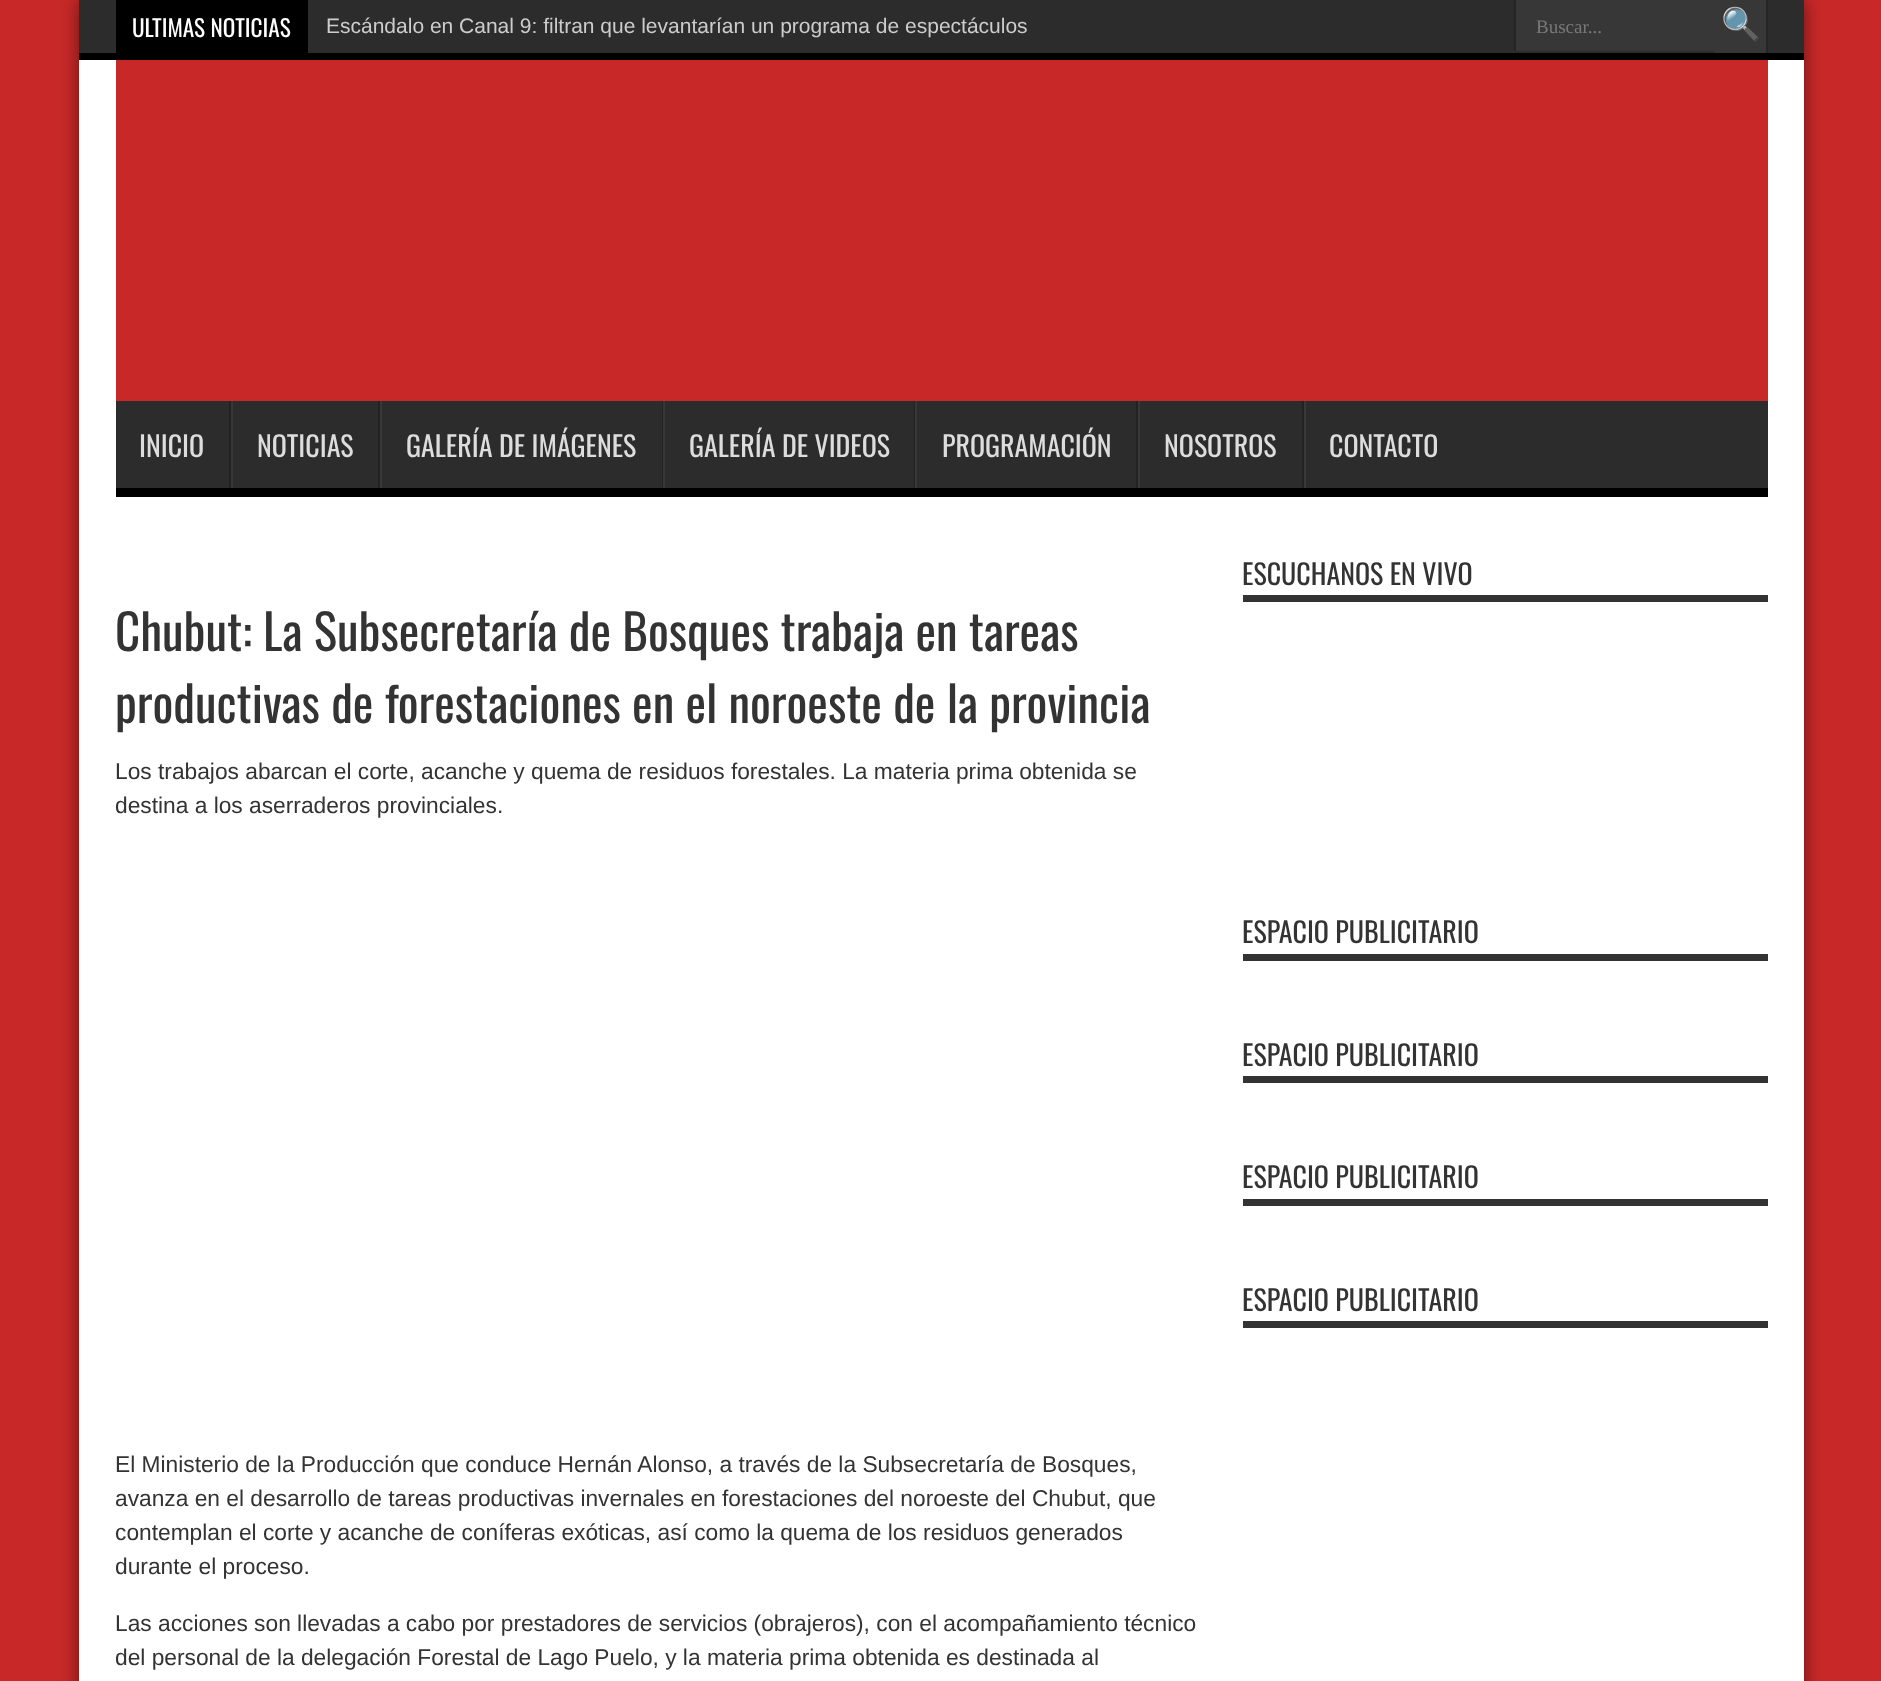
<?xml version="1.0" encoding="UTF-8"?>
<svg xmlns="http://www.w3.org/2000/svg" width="1881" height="1681">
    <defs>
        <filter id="blur1" x="-50%" y="-200%" width="200%" height="500%"><feGaussianBlur stdDeviation="9"/></filter>
    </defs>
    <rect width="100%" height="100%" fill="#C82828"/>
    <rect x="79" y="0" width="1725" height="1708" fill="#000000" fill-opacity="0.5" filter="url(#blur1)"/>
    <rect x="79" y="60" width="1725" height="1621" fill="#FFFFFF"/>
    <rect x="79" y="0" width="1725" height="53" fill="#2C2C2C"/>
    <rect x="79" y="53" width="1725" height="7" fill="#000000"/>
    <rect x="116" y="0" width="192" height="53" fill="#000000"/>
    <text x="132" y="37" font-family="Oswald" font-size="23.25" fill="#FFFFFF">ULTIMAS NOTICIAS</text>
    <text x="326" y="33" font-family="Liberation Sans" font-size="21" fill="#CCCCCC">Escándalo en Canal 9: filtran que levantarían un programa de espectáculos</text>
    <rect x="1516" y="0" width="199" height="51" fill="#373737"/>
    <rect x="1514" y="0" width="2" height="51" fill="#252525"/>
    <text x="1536" y="33" font-family="Liberation Serif" font-size="19" fill="#787878">Buscar...</text>
    <rect x="1715" y="0" width="51" height="53" fill="#373737"/>
    <rect x="1766" y="0" width="2" height="53" fill="#252525"/>
    <text x="1721" y="35" font-family="Noto Color Emoji" font-size="32" fill="#C0C0C0">🔍</text>
    <rect x="116" y="60" width="1652" height="341" fill="#C82828"/>
    <rect x="116" y="401" width="1652" height="87" fill="#2C2C2C"/>
    <rect x="116" y="488" width="1652" height="9" fill="#000000"/>
    <text x="139" y="457" font-family="Oswald" font-size="28" fill="#DDDDDD">INICIO</text>
    <rect x="229" y="401" width="2" height="87" fill="#222222"/>
    <rect x="231" y="401" width="2" height="87" fill="#383838"/>
    <text x="257" y="457" font-family="Oswald" font-size="28" fill="#DDDDDD">NOTICIAS</text>
    <rect x="378" y="401" width="2" height="87" fill="#222222"/>
    <rect x="380" y="401" width="2" height="87" fill="#383838"/>
    <text x="406" y="457" font-family="Oswald" font-size="28" fill="#DDDDDD">GALERÍA DE IMÁGENES</text>
    <rect x="662" y="401" width="1" height="87" fill="#222222"/>
    <rect x="663" y="401" width="2" height="87" fill="#383838"/>
    <text x="689" y="457" font-family="Oswald" font-size="28" fill="#DDDDDD">GALERÍA DE VIDEOS</text>
    <rect x="914" y="401" width="1" height="87" fill="#222222"/>
    <rect x="915" y="401" width="2" height="87" fill="#383838"/>
    <text x="942" y="457" font-family="Oswald" font-size="28" fill="#DDDDDD">PROGRAMACIÓN</text>
    <rect x="1136" y="401" width="2" height="87" fill="#222222"/>
    <rect x="1138" y="401" width="2" height="87" fill="#383838"/>
    <text x="1164" y="457" font-family="Oswald" font-size="28" fill="#DDDDDD">NOSOTROS</text>
    <rect x="1302" y="401" width="2" height="87" fill="#222222"/>
    <rect x="1304" y="401" width="2" height="87" fill="#383838"/>
    <text x="1329" y="457" font-family="Oswald" font-size="28" fill="#DDDDDD">CONTACTO</text>
    <text font-family="Oswald" font-size="49" fill="#333333">
        <tspan x="115" y="651">Chubut: La Subsecretaría de Bosques trabaja en tareas</tspan>
        <tspan x="115" y="723">productivas de forestaciones en el noroeste de la provincia</tspan>
    </text>
    <text font-family="Liberation Sans" font-size="22.75" fill="#333333">
        <tspan x="115" y="779">Los trabajos abarcan el corte, acanche y quema de residuos forestales. La materia prima obtenida se</tspan>
        <tspan x="115" y="813">destina a los aserraderos provinciales.</tspan>
    </text>
    <text font-family="Liberation Sans" font-size="22.75" fill="#333333">
        <tspan x="115" y="1472">El Ministerio de la Producción que conduce Hernán Alonso, a través de la Subsecretaría de Bosques,</tspan>
        <tspan x="115" y="1506">avanza en el desarrollo de tareas productivas invernales en forestaciones del noroeste del Chubut, que</tspan>
        <tspan x="115" y="1540">contemplan el corte y acanche de coníferas exóticas, así como la quema de los residuos generados</tspan>
        <tspan x="115" y="1574">durante el proceso.</tspan>
    </text>
    <text font-family="Liberation Sans" font-size="22.75" fill="#333333">
        <tspan x="115" y="1631">Las acciones son llevadas a cabo por prestadores de servicios (obrajeros), con el acompañamiento técnico</tspan>
        <tspan x="115" y="1665">del personal de la delegación Forestal de Lago Puelo, y la materia prima obtenida es destinada al</tspan>
    </text>
    <rect x="1243" y="595" width="525" height="7" fill="#333333"/>
    <text x="1242" y="585" font-family="Oswald" font-size="28" fill="#333333">ESCUCHANOS EN VIVO</text>
    <rect x="1243" y="954" width="525" height="7" fill="#333333"/>
    <text x="1242" y="943" font-family="Oswald" font-size="28" fill="#333333">ESPACIO PUBLICITARIO</text>
    <rect x="1243" y="1076" width="525" height="7" fill="#333333"/>
    <text x="1242" y="1066" font-family="Oswald" font-size="28" fill="#333333">ESPACIO PUBLICITARIO</text>
    <rect x="1243" y="1199" width="525" height="7" fill="#333333"/>
    <text x="1242" y="1188" font-family="Oswald" font-size="28" fill="#333333">ESPACIO PUBLICITARIO</text>
    <rect x="1243" y="1321" width="525" height="7" fill="#333333"/>
    <text x="1242" y="1311" font-family="Oswald" font-size="28" fill="#333333">ESPACIO PUBLICITARIO</text>
</svg>
